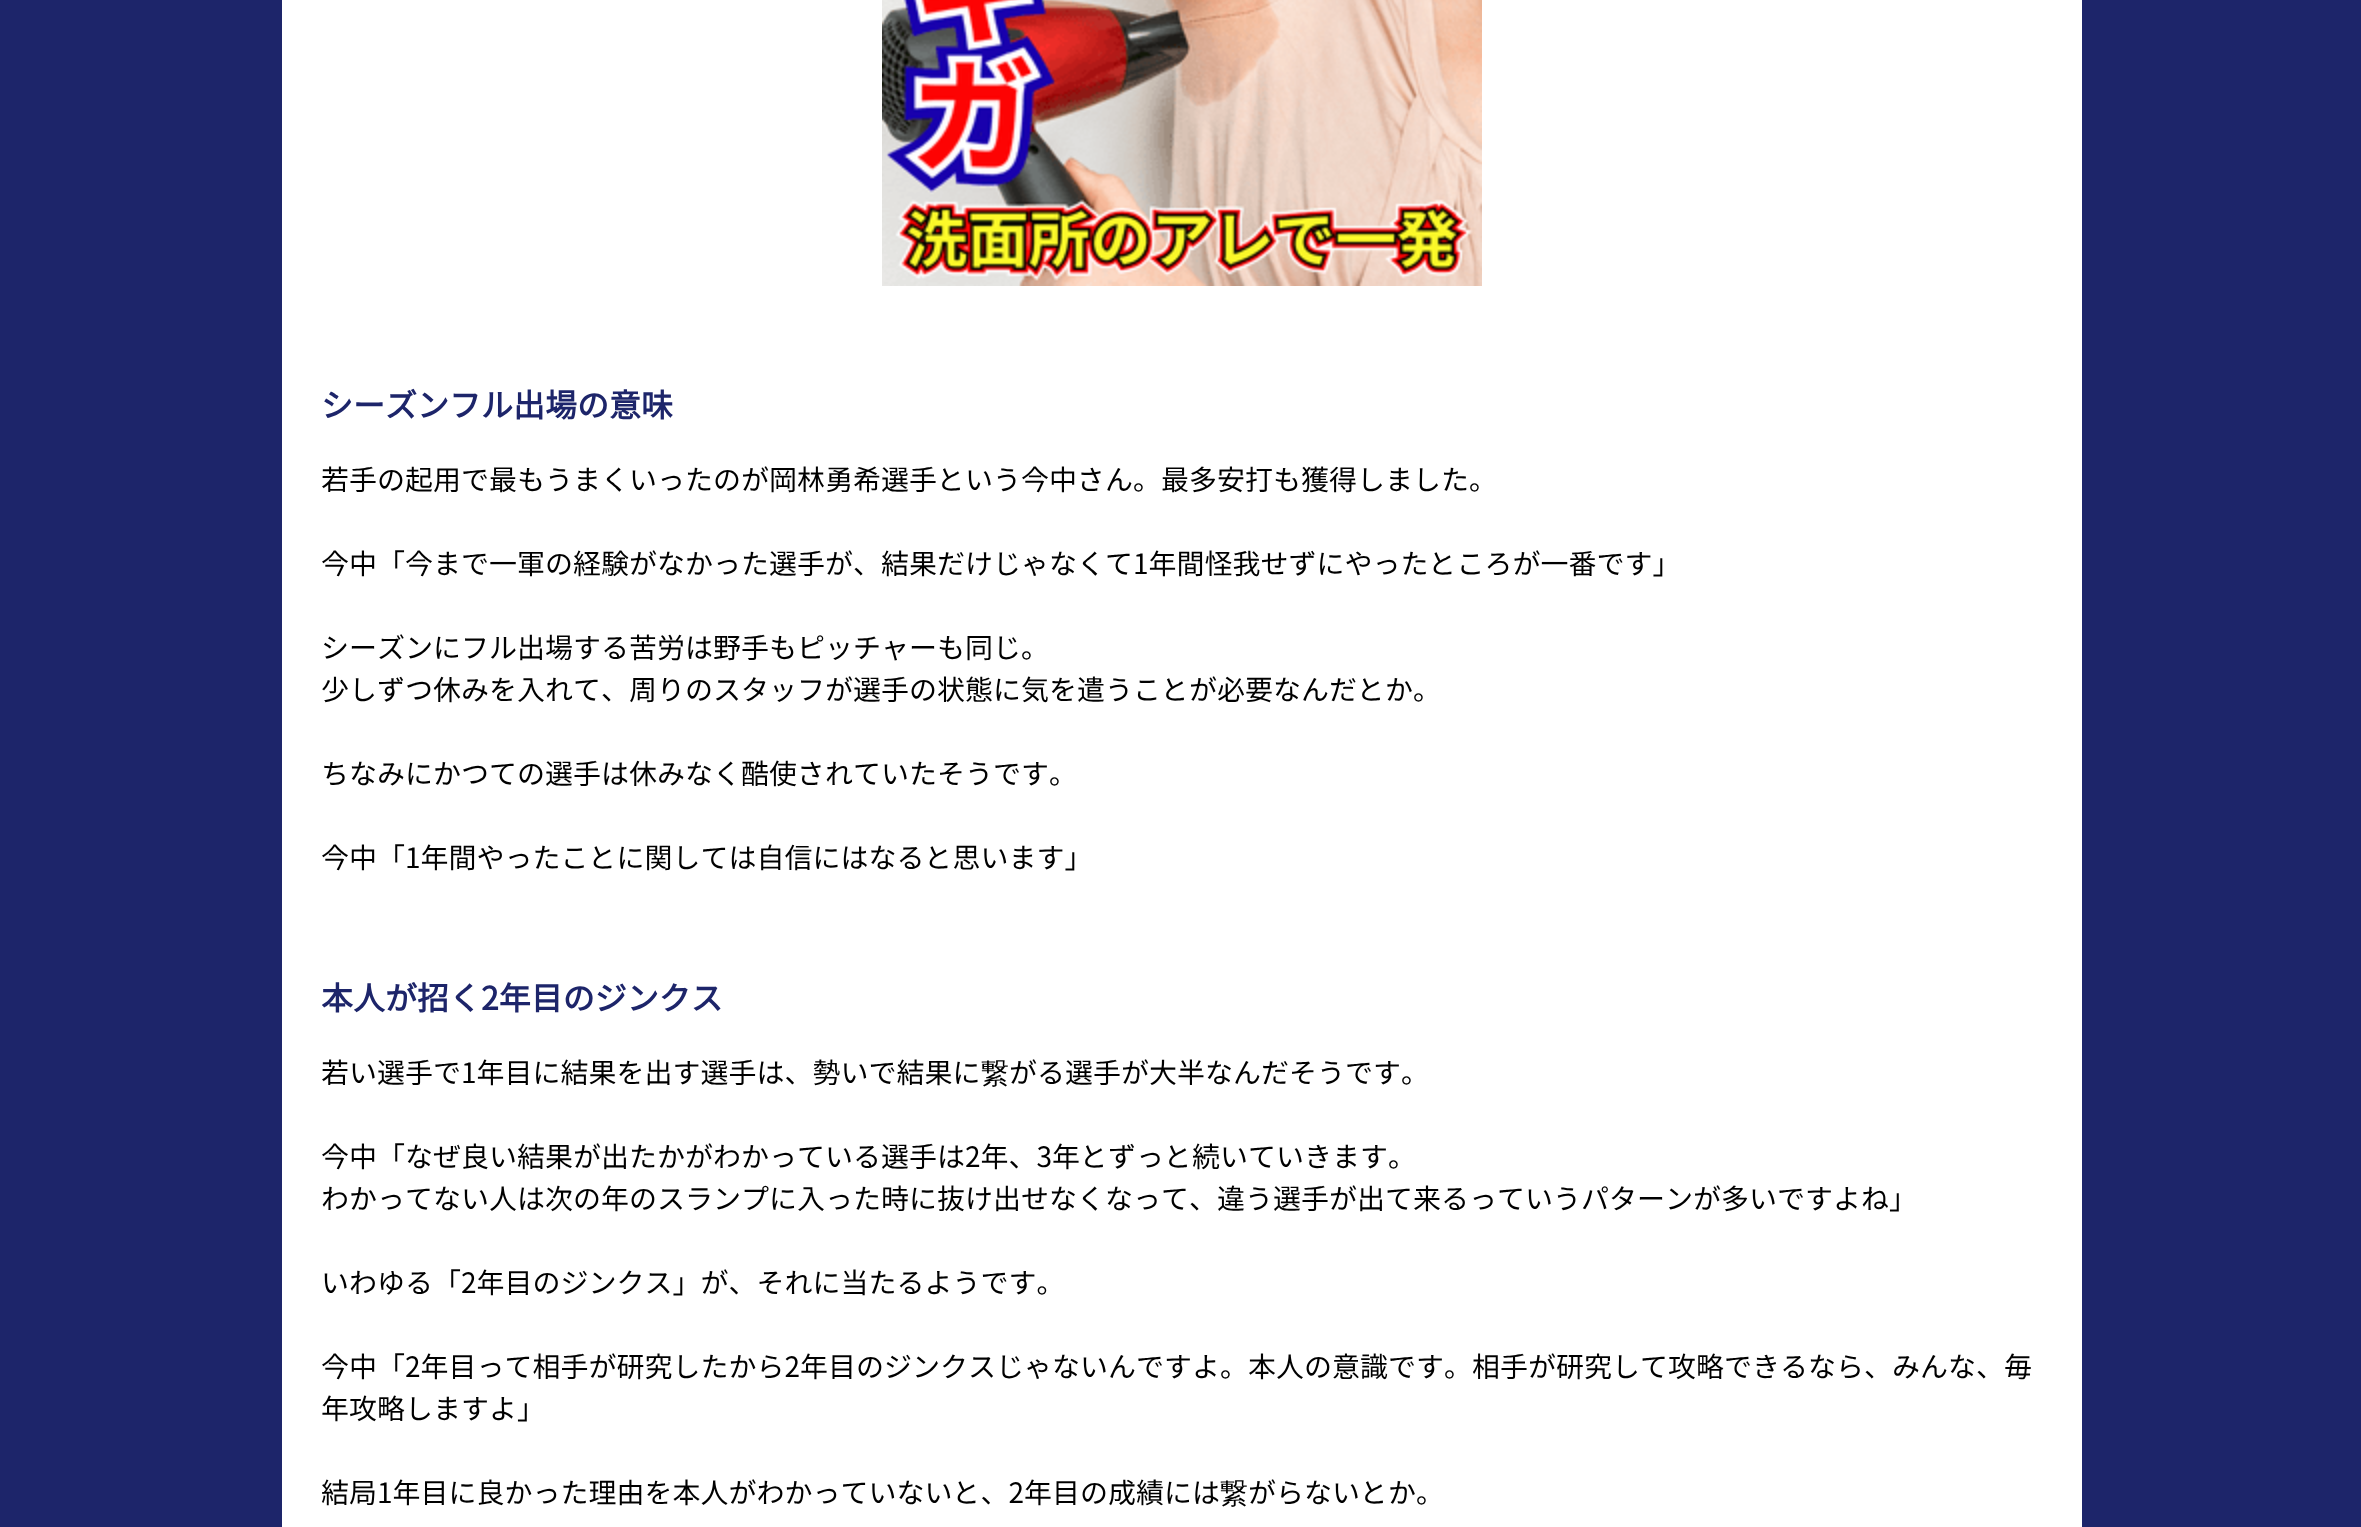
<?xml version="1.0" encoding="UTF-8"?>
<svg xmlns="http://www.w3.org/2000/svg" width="2361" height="1527">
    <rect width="100%" height="100%" fill="#1D256A"/>
    <rect x="282" y="0" width="1800" height="1527" fill="#FFFFFF"/>
    <image x="882" y="0" width="600" height="286" href="img_01.png"/>
    <text x="321" y="417" font-family="Noto Sans CJK JP" font-size="32" font-weight="700" fill="#1D256A">シーズンフル出場の意味</text>
    <text x="321" y="490" font-family="Noto Sans CJK JP" font-size="28" fill="#000000">若手の起用で最もうまくいったのが岡林勇希選手という今中さん。最多安打も獲得しました。</text>
    <text x="321" y="574" font-family="Noto Sans CJK JP" font-size="28" fill="#000000">今中「今まで一軍の経験がなかった選手が、結果だけじゃなくて1年間怪我せずにやったところが一番です」</text>
    <text font-family="Noto Sans CJK JP" font-size="28" fill="#000000">
        <tspan x="321" y="658">シーズンにフル出場する苦労は野手もピッチャーも同じ。</tspan>
        <tspan x="321" y="700">少しずつ休みを入れて、周りのスタッフが選手の状態に気を遣うことが必要なんだとか。</tspan>
    </text>
    <text x="321" y="784" font-family="Noto Sans CJK JP" font-size="28" fill="#000000">ちなみにかつての選手は休みなく酷使されていたそうです。</text>
    <text x="321" y="868" font-family="Noto Sans CJK JP" font-size="28" fill="#000000">今中「1年間やったことに関しては自信にはなると思います」</text>
    <text x="321" y="1010" font-family="Noto Sans CJK JP" font-size="32" font-weight="700" fill="#1D256A">本人が招く2年目のジンクス</text>
    <text x="321" y="1083" font-family="Noto Sans CJK JP" font-size="28" fill="#000000">若い選手で1年目に結果を出す選手は、勢いで結果に</text>
    <text x="981" y="1083" font-family="WenQuanYi Zen Hei" font-size="28" font-weight="500" fill="#000000">繋</text>
    <text x="1009" y="1083" font-family="Noto Sans CJK JP" font-size="28" fill="#000000">がる選手が大半なんだそうです。</text>
    <text font-family="Noto Sans CJK JP" font-size="28" fill="#000000">
        <tspan x="321" y="1167">今中「なぜ良い結果が出たかがわかっている選手は2年、3年とずっと続いていきます。</tspan>
        <tspan x="321" y="1209">わかってない人は次の年のスランプに入った時に抜け出せなくなって、違う選手が出て来るっていうパターンが多いですよね」</tspan>
    </text>
    <text x="321" y="1293" font-family="Noto Sans CJK JP" font-size="28" fill="#000000">いわゆる「2年目のジンクス」が、それに当たるようです。</text>
    <text font-family="Noto Sans CJK JP" font-size="28" fill="#000000">
        <tspan x="321" y="1377">今中「2年目って相手が研究したから2年目のジンクスじゃないんですよ。本人の意識です。相手が研究して攻略できるなら、みんな、毎</tspan>
        <tspan x="321" y="1419">年攻略しますよ」</tspan>
    </text>
    <text x="321" y="1503" font-family="Noto Sans CJK JP" font-size="28" fill="#000000">結局1年目に良かった理由を本人がわかっていないと、2年目の成績には</text>
    <text x="1220" y="1503" font-family="WenQuanYi Zen Hei" font-size="28" font-weight="500" fill="#000000">繋</text>
    <text x="1248" y="1503" font-family="Noto Sans CJK JP" font-size="28" fill="#000000">がらないとか。</text>
</svg>
